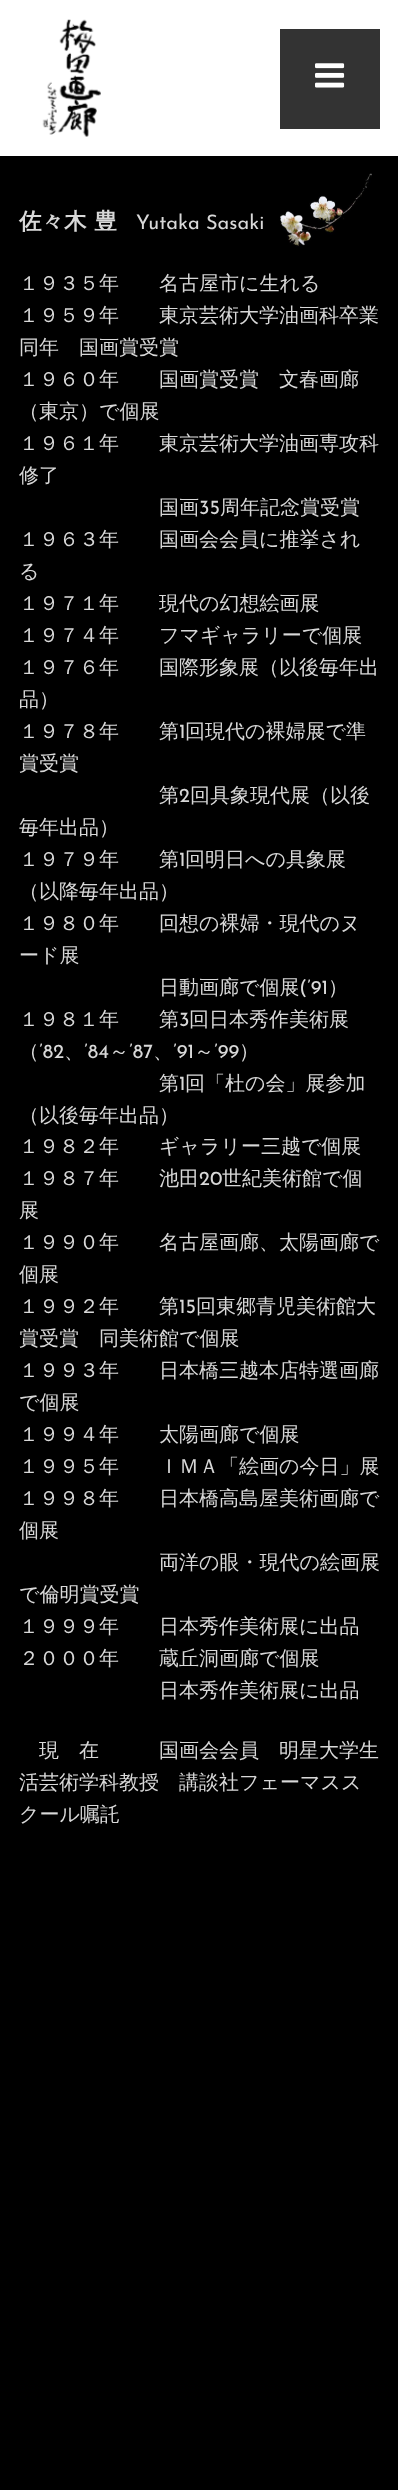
<?xml version="1.0" encoding="UTF-8"?>
<svg xmlns="http://www.w3.org/2000/svg" width="398" height="2490">
    <rect width="100%" height="100%" fill="#000000"/>
    <image x="280" y="173" width="92" height="74" href="img_01.png"/>
    <rect x="0" y="0" width="398" height="156" fill="#FFFFFF"/>
    <image x="42" y="19" width="59" height="118" href="img_02.png"/>
    <rect x="280" y="29" width="100" height="100" fill="#333333"/>
    <image x="315" y="63" width="30" height="25" href="img_03.png"/>
    <text x="19" y="229" word-spacing="1" font-family="WenQuanYi Zen Hei" font-size="22.5" font-weight="700" fill="#D8D8D8">佐々木 豊</text>
    <text x="136" y="229" font-family="Josefin Sans" font-size="20" fill="#D8D8D8">Yutaka Sasaki</text>
    <text font-family="WenQuanYi Zen Hei" font-size="20" font-weight="500" fill="#D8D8D8">
        <tspan x="19" y="290">１９３５年　　名古屋市に生れる</tspan>
        <tspan x="19" y="322">１９５９年　　東京芸術大学油画科卒業</tspan>
        <tspan x="19" y="354">同年　国画賞受賞</tspan>
        <tspan x="19" y="386">１９６０年　　国画賞受賞　文春画廊</tspan>
        <tspan x="19" y="418">（東京）で個展</tspan>
        <tspan x="19" y="450">１９６１年　　東京芸術大学油画専攻科</tspan>
        <tspan x="19" y="482">修了</tspan>
    </text>
    <text x="159" y="514" font-family="WenQuanYi Zen Hei" font-size="20" font-weight="500" fill="#D8D8D8">国画</text>
    <text x="199" y="514" font-family="Josefin Sans" font-size="20" fill="#D8D8D8">35</text>
    <text x="220" y="514" font-family="WenQuanYi Zen Hei" font-size="20" font-weight="500" fill="#D8D8D8">周年記念賞受賞</text>
    <text font-family="WenQuanYi Zen Hei" font-size="20" font-weight="500" fill="#D8D8D8">
        <tspan x="19" y="546">１９６３年　　国画会会員に推挙され</tspan>
        <tspan x="19" y="578">る</tspan>
        <tspan x="19" y="610">１９７１年　　現代の幻想絵画展</tspan>
        <tspan x="19" y="642">１９７４年　　フマギャラリーで個展</tspan>
        <tspan x="19" y="674">１９７６年　　国際形象展（以後毎年出</tspan>
        <tspan x="19" y="706">品）</tspan>
        <tspan x="19" y="738">１９７８年　　第</tspan>
    </text>
    <text x="179" y="738" font-family="Josefin Sans" font-size="20" fill="#D8D8D8">1</text>
    <text x="185" y="738" font-family="WenQuanYi Zen Hei" font-size="20" font-weight="500" fill="#D8D8D8">回現代の裸婦展で準</text>
    <text x="19" y="770" font-family="WenQuanYi Zen Hei" font-size="20" font-weight="500" fill="#D8D8D8">賞受賞</text>
    <text x="159" y="802" font-family="WenQuanYi Zen Hei" font-size="20" font-weight="500" fill="#D8D8D8">第</text>
    <text x="179" y="802" font-family="Josefin Sans" font-size="20" fill="#D8D8D8">2</text>
    <text x="190" y="802" font-family="WenQuanYi Zen Hei" font-size="20" font-weight="500" fill="#D8D8D8">回具象現代展（以後</text>
    <text font-family="WenQuanYi Zen Hei" font-size="20" font-weight="500" fill="#D8D8D8">
        <tspan x="19" y="834">毎年出品）</tspan>
        <tspan x="19" y="866">１９７９年　　第</tspan>
    </text>
    <text x="179" y="866" font-family="Josefin Sans" font-size="20" fill="#D8D8D8">1</text>
    <text x="185" y="866" font-family="WenQuanYi Zen Hei" font-size="20" font-weight="500" fill="#D8D8D8">回明日への具象展</text>
    <text font-family="WenQuanYi Zen Hei" font-size="20" font-weight="500" fill="#D8D8D8">
        <tspan x="19" y="898">（以降毎年出品）</tspan>
        <tspan x="19" y="930">１９８０年　　回想の裸婦・現代のヌ</tspan>
        <tspan x="19" y="962">ード展</tspan>
    </text>
    <text x="159" y="994" font-family="WenQuanYi Zen Hei" font-size="20" font-weight="500" fill="#D8D8D8">日動画廊で個展</text>
    <text x="299" y="994" font-family="Josefin Sans" font-size="20" fill="#D8D8D8">(’91</text>
    <text x="328" y="994" font-family="WenQuanYi Zen Hei" font-size="20" font-weight="500" fill="#D8D8D8">）</text>
    <text x="19" y="1026" font-family="WenQuanYi Zen Hei" font-size="20" font-weight="500" fill="#D8D8D8">１９８１年　　第</text>
    <text x="179" y="1026" font-family="Josefin Sans" font-size="20" fill="#D8D8D8">3</text>
    <text x="189" y="1026" font-family="WenQuanYi Zen Hei" font-size="20" font-weight="500" fill="#D8D8D8">回日本秀作美術展</text>
    <text x="19" y="1058" font-family="WenQuanYi Zen Hei" font-size="20" font-weight="500" fill="#D8D8D8">（</text>
    <text x="39" y="1058" font-family="Josefin Sans" font-size="20" fill="#D8D8D8">’82</text>
    <text x="84" y="1058" font-family="Josefin Sans" font-size="20" fill="#D8D8D8">’84</text>
    <text x="109" y="1058" font-family="WenQuanYi Zen Hei" font-size="20" font-weight="500" fill="#D8D8D8">～</text>
    <text x="129" y="1058" font-family="Josefin Sans" font-size="20" fill="#D8D8D8">’87</text>
    <text x="173" y="1058" font-family="Josefin Sans" font-size="20" fill="#D8D8D8">’91</text>
    <text x="194" y="1058" font-family="WenQuanYi Zen Hei" font-size="20" font-weight="500" fill="#D8D8D8">～</text>
    <text x="214" y="1058" font-family="Josefin Sans" font-size="20" fill="#D8D8D8">’99</text>
    <text x="239" y="1058" font-family="WenQuanYi Zen Hei" font-size="20" font-weight="500" fill="#D8D8D8">）</text>
    <text x="64" y="1058" font-family="WenQuanYi Zen Hei" font-size="20" font-weight="500" fill="#D8D8D8">、</text>
    <text x="153" y="1058" font-family="WenQuanYi Zen Hei" font-size="20" font-weight="500" fill="#D8D8D8">、</text>
    <text x="159" y="1090" font-family="WenQuanYi Zen Hei" font-size="20" font-weight="500" fill="#D8D8D8">第</text>
    <text x="179" y="1090" font-family="Josefin Sans" font-size="20" fill="#D8D8D8">1</text>
    <text x="185" y="1090" font-family="WenQuanYi Zen Hei" font-size="20" font-weight="500" fill="#D8D8D8">回「杜の会」展参加</text>
    <text font-family="WenQuanYi Zen Hei" font-size="20" font-weight="500" fill="#D8D8D8">
        <tspan x="19" y="1122">（以後毎年出品）</tspan>
        <tspan x="19" y="1153">１９８２年　　ギャラリー三越で個展</tspan>
        <tspan x="19" y="1185">１９８７年　　池田</tspan>
    </text>
    <text x="199" y="1185" font-family="Josefin Sans" font-size="20" fill="#D8D8D8">20</text>
    <text x="222" y="1185" font-family="WenQuanYi Zen Hei" font-size="20" font-weight="500" fill="#D8D8D8">世紀美術館で個</text>
    <text font-family="WenQuanYi Zen Hei" font-size="20" font-weight="500" fill="#D8D8D8">
        <tspan x="19" y="1217">展</tspan>
        <tspan x="19" y="1249">１９９０年　　名古屋画廊、太陽画廊で</tspan>
        <tspan x="19" y="1281">個展</tspan>
        <tspan x="19" y="1313">１９９２年　　第</tspan>
    </text>
    <text x="179" y="1313" font-family="Josefin Sans" font-size="20" fill="#D8D8D8">15</text>
    <text x="196" y="1313" font-family="WenQuanYi Zen Hei" font-size="20" font-weight="500" fill="#D8D8D8">回東郷青児美術館大</text>
    <text font-family="WenQuanYi Zen Hei" font-size="20" font-weight="500" fill="#D8D8D8">
        <tspan x="19" y="1345">賞受賞　同美術館で個展</tspan>
        <tspan x="19" y="1377">１９９３年　　日本橋三越本店特選画廊</tspan>
        <tspan x="19" y="1409">で個展</tspan>
        <tspan x="19" y="1441">１９９４年　　太陽画廊で個展</tspan>
        <tspan x="19" y="1473">１９９５年　　ＩＭＡ「絵画の今日」展</tspan>
        <tspan x="19" y="1505">１９９８年　　日本橋高島屋美術画廊で</tspan>
        <tspan x="19" y="1537">個展</tspan>
    </text>
    <text x="159" y="1569" font-family="WenQuanYi Zen Hei" font-size="20" font-weight="500" fill="#D8D8D8">両洋の眼・現代の絵画展</text>
    <text font-family="WenQuanYi Zen Hei" font-size="20" font-weight="500" fill="#D8D8D8">
        <tspan x="19" y="1601">で倫明賞受賞</tspan>
        <tspan x="19" y="1633">１９９９年　　日本秀作美術展に出品</tspan>
        <tspan x="19" y="1665">２０００年　　蔵丘洞画廊で個展</tspan>
    </text>
    <text x="159" y="1697" font-family="WenQuanYi Zen Hei" font-size="20" font-weight="500" fill="#D8D8D8">日本秀作美術展に出品</text>
    <text x="39" y="1757" font-family="WenQuanYi Zen Hei" font-size="20" font-weight="500" fill="#D8D8D8">現　在　　　国画会会員　明星大学生</text>
    <text font-family="WenQuanYi Zen Hei" font-size="20" font-weight="500" fill="#D8D8D8">
        <tspan x="19" y="1789">活芸術学科教授　講談社フェーマスス</tspan>
        <tspan x="19" y="1821">クール嘱託</tspan>
    </text>
</svg>
